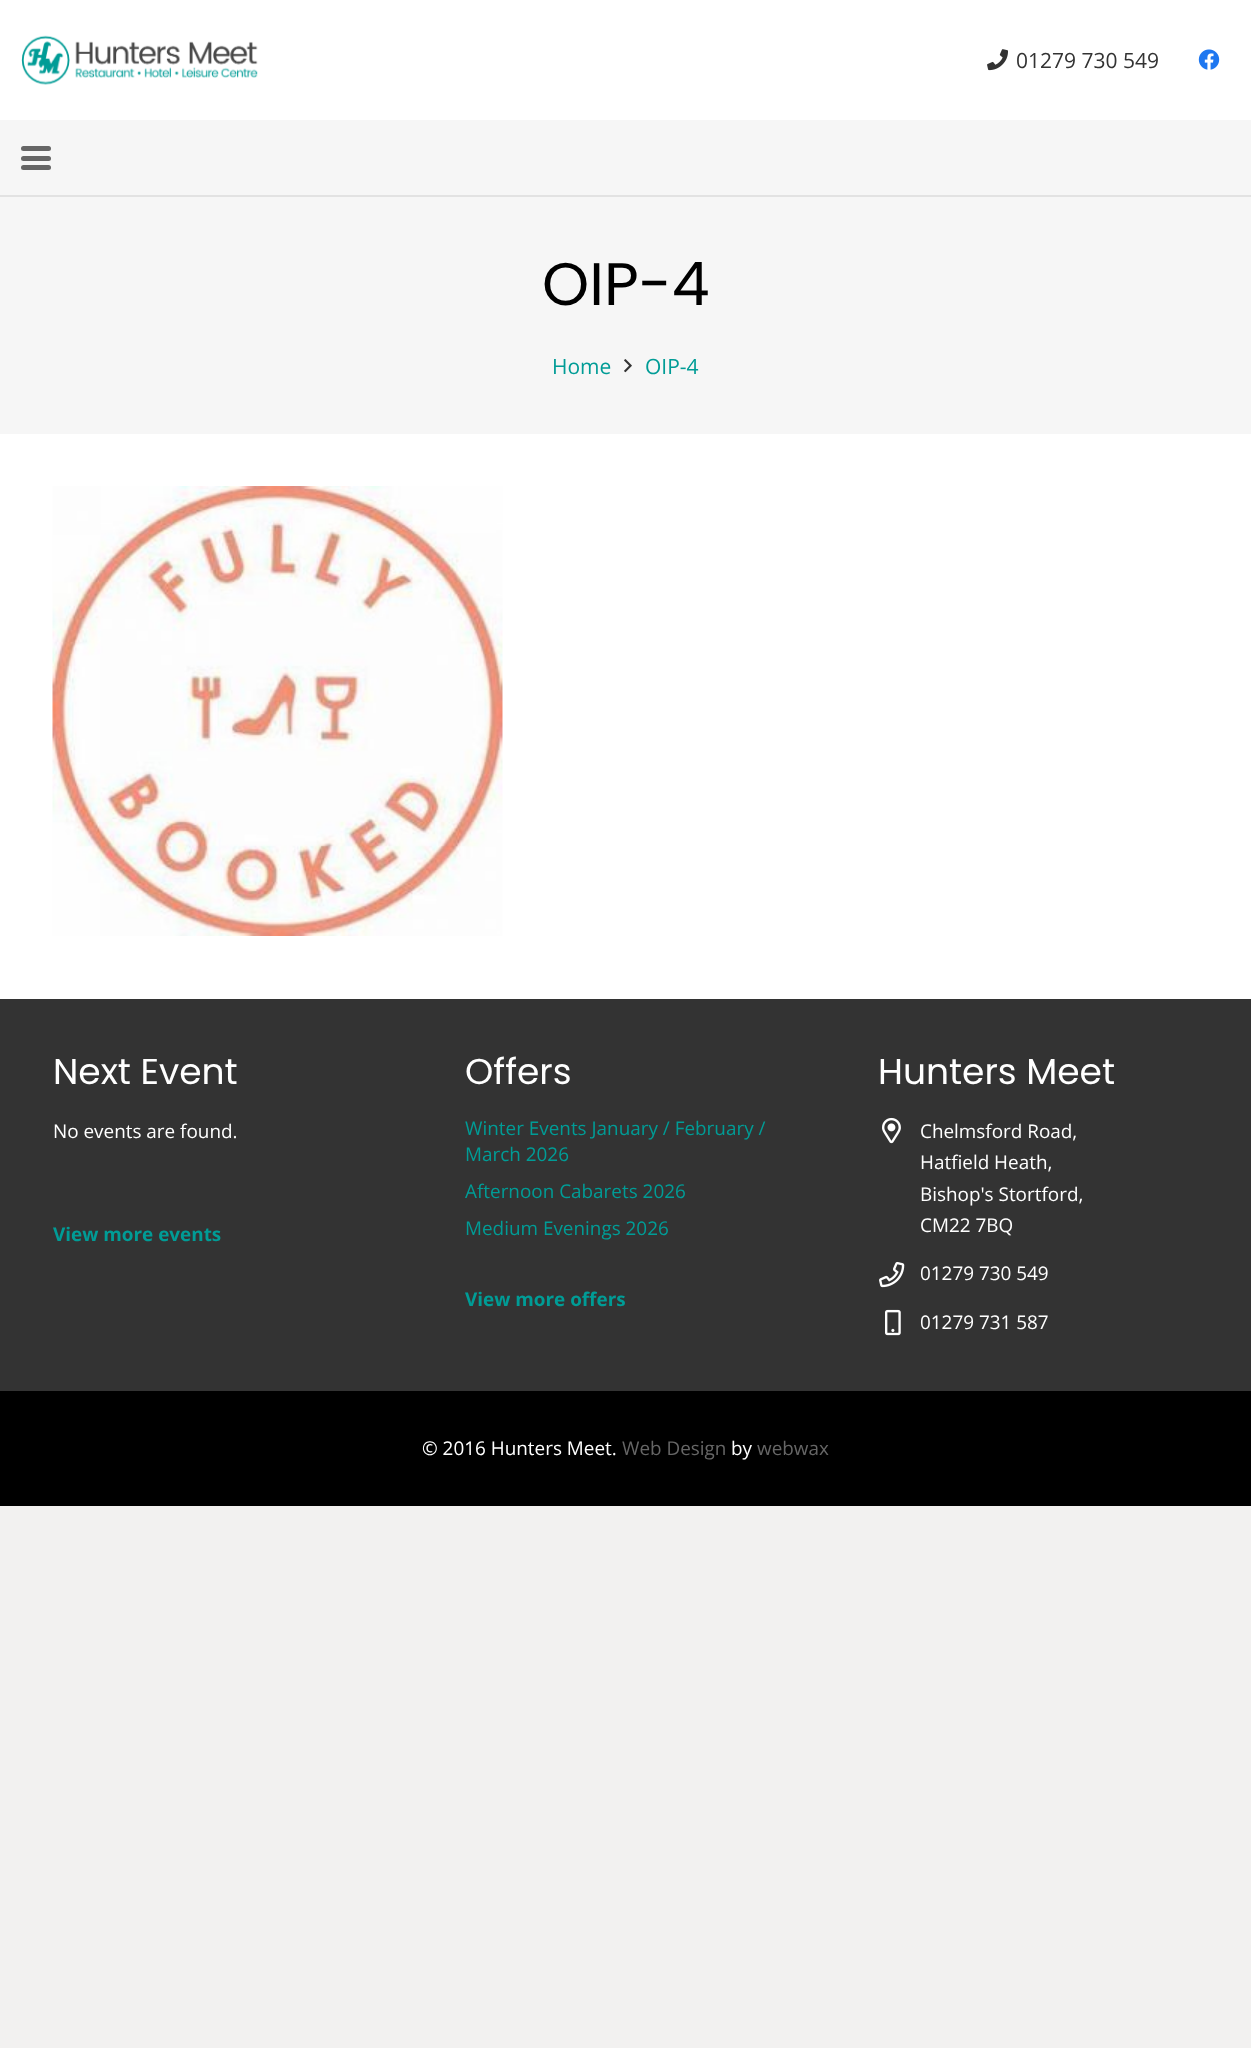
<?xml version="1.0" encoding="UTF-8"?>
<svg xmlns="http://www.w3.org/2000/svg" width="1251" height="2048">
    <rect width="100%" height="100%" fill="#F2F1F0"/>
    <rect x="0" y="434" width="1251" height="565" fill="#FFFFFF"/>
    <rect x="0" y="0" width="1251" height="120" fill="#FFFFFF"/>
    <image x="21" y="35" width="237" height="50" href="img_01.png"/>
    <image x="987" y="49" width="21" height="22" href="img_02.png"/>
    <text x="1016" y="68" font-family="Open Sans" font-size="21" fill="#333333">01279 730 549</text>
    <image x="1198" y="49" width="22" height="21" href="img_03.png"/>
    <rect x="0" y="195" width="1251" height="2" fill="#E2E2E2"/>
    <rect x="0" y="120" width="1251" height="75" fill="#F6F6F6"/>
    <rect x="21" y="156" width="30" height="5" rx="2.5" fill="#666666"/>
    <rect x="21" y="146" width="30" height="5" rx="2.5" fill="#666666"/>
    <rect x="21" y="165" width="30" height="5" rx="2.5" fill="#666666"/>
    <rect x="0" y="197" width="1251" height="237" fill="#F6F6F6"/>
    <text x="542" y="305" font-family="Poppins" font-size="60" fill="#000000">OIP-4</text>
    <text x="552" y="374" font-family="Open Sans" font-size="21" fill="#009C96">Home</text>
    <image x="624" y="359" width="8" height="14" href="img_04.png"/>
    <text x="645" y="374" font-family="Open Sans" font-size="21" fill="#009C96">OIP-4</text>
    <image x="52" y="486" width="451" height="450" href="img_05.png"/>
    <rect x="0" y="999" width="1251" height="392" fill="#333333"/>
    <text x="53" y="1084" font-family="Poppins" font-size="36" fill="#FFFFFF">Next Event</text>
    <text x="53" y="1138" font-family="Open Sans" font-size="18.9" fill="#FFFFFF">No events are found.</text>
    <text x="53" y="1241" font-family="Open Sans" font-size="18.9" font-weight="700" fill="#009C96">View more events</text>
    <text x="465" y="1084" font-family="Poppins" font-size="36" fill="#FFFFFF">Offers</text>
    <text font-family="Open Sans" font-size="18.9" fill="#009C96">
        <tspan x="465" y="1135">Winter Events January / February /</tspan>
        <tspan x="465" y="1161">March 2026</tspan>
        <tspan x="465" y="1198">Afternoon Cabarets 2026</tspan>
        <tspan x="465" y="1235">Medium Evenings 2026</tspan>
    </text>
    <text x="465" y="1306" font-family="Open Sans" font-size="18.9" font-weight="700" fill="#009C96">View more offers</text>
    <text x="878" y="1084" font-family="Poppins" font-size="36" fill="#FFFFFF">Hunters Meet</text>
    <image x="882" y="1117" width="19" height="27" href="img_06.png"/>
    <text font-family="Open Sans" font-size="18.9" fill="#FFFFFF">
        <tspan x="920" y="1138">Chelmsford Road,</tspan>
        <tspan x="920" y="1169">Hatfield Heath,</tspan>
        <tspan x="920" y="1201">Bishop's Stortford,</tspan>
        <tspan x="920" y="1232">CM22 7BQ</tspan>
    </text>
    <image x="879" y="1261" width="26" height="27" href="img_07.png"/>
    <text x="920" y="1280" font-family="Open Sans" font-size="18.9" fill="#FFFFFF">01279 730 549</text>
    <image x="885" y="1309" width="16" height="27" href="img_08.png"/>
    <text x="920" y="1329" font-family="Open Sans" font-size="18.9" fill="#FFFFFF">01279 731 587</text>
    <rect x="0" y="1391" width="1251" height="115" fill="#000000"/>
    <text x="422" y="1455" font-family="Open Sans" font-size="18.9" fill="#FFFFFF">© 2016 Hunters Meet.</text>
    <text x="622" y="1455" font-family="Open Sans" font-size="18.9" fill="#666666">Web Design</text>
    <text x="731" y="1455" font-family="Open Sans" font-size="18.9" fill="#FFFFFF">by</text>
    <text x="757" y="1455" font-family="Open Sans" font-size="18.9" fill="#666666">webwax</text>
</svg>
